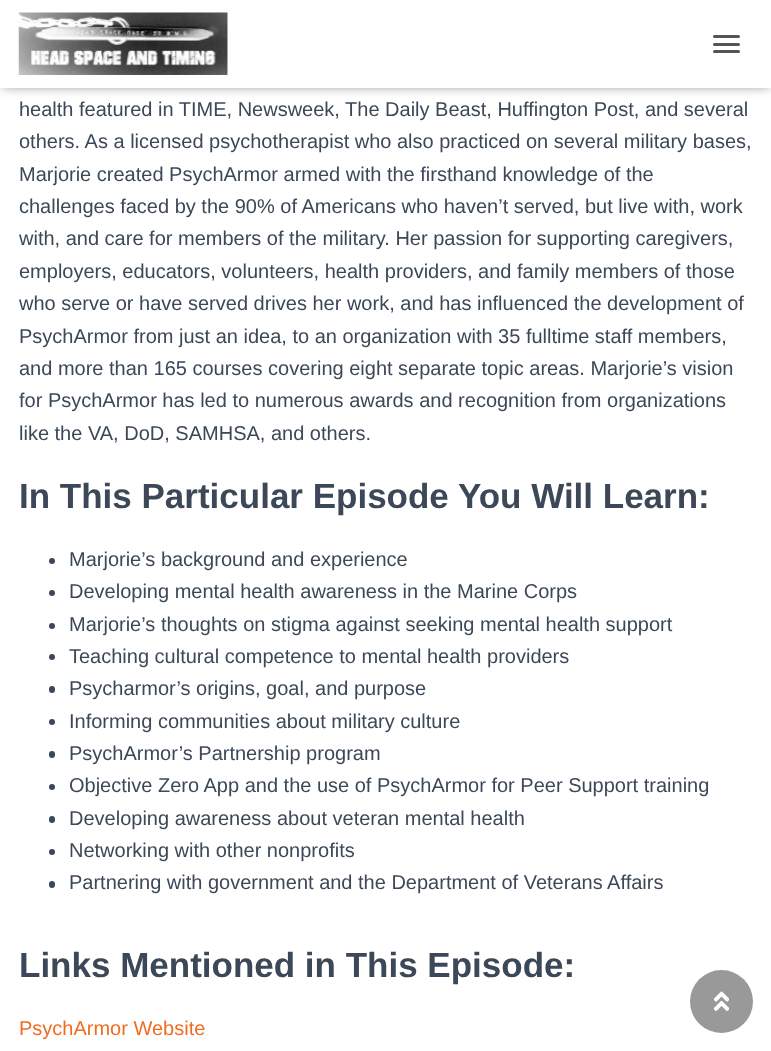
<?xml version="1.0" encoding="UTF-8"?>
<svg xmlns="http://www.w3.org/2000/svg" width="771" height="1051">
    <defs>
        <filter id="blur1" x="-50%" y="-200%" width="200%" height="500%"><feGaussianBlur stdDeviation="3"/></filter>
        <filter id="blur2" x="-50%" y="-200%" width="200%" height="500%"><feGaussianBlur stdDeviation="6"/></filter>
    </defs>
    <rect width="100%" height="100%" fill="#FFFFFF"/>
    <rect x="3" y="8" width="766" height="82" fill="#000000" fill-opacity="0.1" filter="url(#blur1)"/>
    <rect x="0" y="1" width="771" height="88" fill="#000000" fill-opacity="0.12" filter="url(#blur2)"/>
    <rect x="8" y="9" width="756" height="72" fill="#000000" fill-opacity="0.42" filter="url(#blur2)"/>
    <rect x="0" y="0" width="771" height="88" fill="#FFFFFF"/>
    <image x="18" y="12" width="210" height="63" href="img_01.png"/>
    <rect x="713" y="35" width="27" height="3" rx="1.5" fill="#555555"/>
    <rect x="713" y="43" width="27" height="3" rx="1.5" fill="#555555"/>
    <rect x="713" y="50" width="27" height="3" rx="1.5" fill="#555555"/>
    <text font-family="Liberation Sans" font-size="20" fill="#3C4858">
        <tspan x="19" y="116">health featured in TIME, Newsweek, The Daily Beast, Huffington Post, and several</tspan>
        <tspan x="19" y="148">others. As a licensed psychotherapist who also practiced on several military bases,</tspan>
        <tspan x="19" y="181">Marjorie created PsychArmor armed with the firsthand knowledge of the</tspan>
        <tspan x="19" y="213">challenges faced by the 90% of Americans who haven’t served, but live with, work</tspan>
        <tspan x="19" y="245">with, and care for members of the military. Her passion for supporting caregivers,</tspan>
        <tspan x="19" y="278">employers, educators, volunteers, health providers, and family members of those</tspan>
        <tspan x="19" y="310">who serve or have served drives her work, and has influenced the development of</tspan>
        <tspan x="19" y="343">PsychArmor from just an idea, to an organization with 35 fulltime staff members,</tspan>
        <tspan x="19" y="375">and more than 165 courses covering eight separate topic areas. Marjorie’s vision</tspan>
        <tspan x="19" y="407">for PsychArmor has led to numerous awards and recognition from organizations</tspan>
        <tspan x="19" y="440">like the VA, DoD, SAMHSA, and others.</tspan>
    </text>
    <text x="19" y="508" font-family="Liberation Sans" font-size="35" font-weight="700" fill="#3C4858">In This Particular Episode You Will Learn:</text>
    <circle cx="52" cy="561" r="3" fill="#3C4858"/>
    <text x="69" y="566" font-family="Liberation Sans" font-size="20" fill="#3C4858">Marjorie’s background and experience</text>
    <circle cx="52" cy="593" r="3" fill="#3C4858"/>
    <text x="69" y="598" font-family="Liberation Sans" font-size="20" fill="#3C4858">Developing mental health awareness in the Marine Corps</text>
    <circle cx="52" cy="626" r="3" fill="#3C4858"/>
    <text x="69" y="631" font-family="Liberation Sans" font-size="20" fill="#3C4858">Marjorie’s thoughts on stigma against seeking mental health support</text>
    <circle cx="52" cy="657" r="3" fill="#3C4858"/>
    <text x="69" y="663" font-family="Liberation Sans" font-size="20" fill="#3C4858">Teaching cultural competence to mental health providers</text>
    <rect x="49" y="686" width="6" height="7" rx="3" fill="#3C4858"/>
    <text x="69" y="695" font-family="Liberation Sans" font-size="20" fill="#3C4858">Psycharmor’s origins, goal, and purpose</text>
    <circle cx="52" cy="722" r="3" fill="#3C4858"/>
    <text x="69" y="728" font-family="Liberation Sans" font-size="20" fill="#3C4858">Informing communities about military culture</text>
    <rect x="49" y="751" width="6" height="7" rx="3" fill="#3C4858"/>
    <text x="69" y="760" font-family="Liberation Sans" font-size="20" fill="#3C4858">PsychArmor’s Partnership program</text>
    <circle cx="52" cy="787" r="3" fill="#3C4858"/>
    <text x="69" y="792" font-family="Liberation Sans" font-size="20" fill="#3C4858">Objective Zero App and the use of PsychArmor for Peer Support training</text>
    <rect x="49" y="816" width="6" height="7" rx="3" fill="#3C4858"/>
    <text x="69" y="825" font-family="Liberation Sans" font-size="20" fill="#3C4858">Developing awareness about veteran mental health</text>
    <circle cx="52" cy="852" r="3" fill="#3C4858"/>
    <text x="69" y="857" font-family="Liberation Sans" font-size="20" fill="#3C4858">Networking with other nonprofits</text>
    <rect x="49" y="881" width="6" height="7" rx="3" fill="#3C4858"/>
    <text x="69" y="889" font-family="Liberation Sans" font-size="20" fill="#3C4858">Partnering with government and the Department of Veterans Affairs</text>
    <text x="19" y="977" font-family="Liberation Sans" font-size="35" font-weight="700" fill="#3C4858">Links Mentioned in This Episode:</text>
    <text x="19" y="1035" font-family="Liberation Sans" font-size="20" fill="#F16C20">PsychArmor Website</text>
    <circle cx="721.5" cy="1001.5" r="31.5" fill="#999999"/>
    <image x="714" y="991" width="15" height="20" href="img_02.png"/>
</svg>
